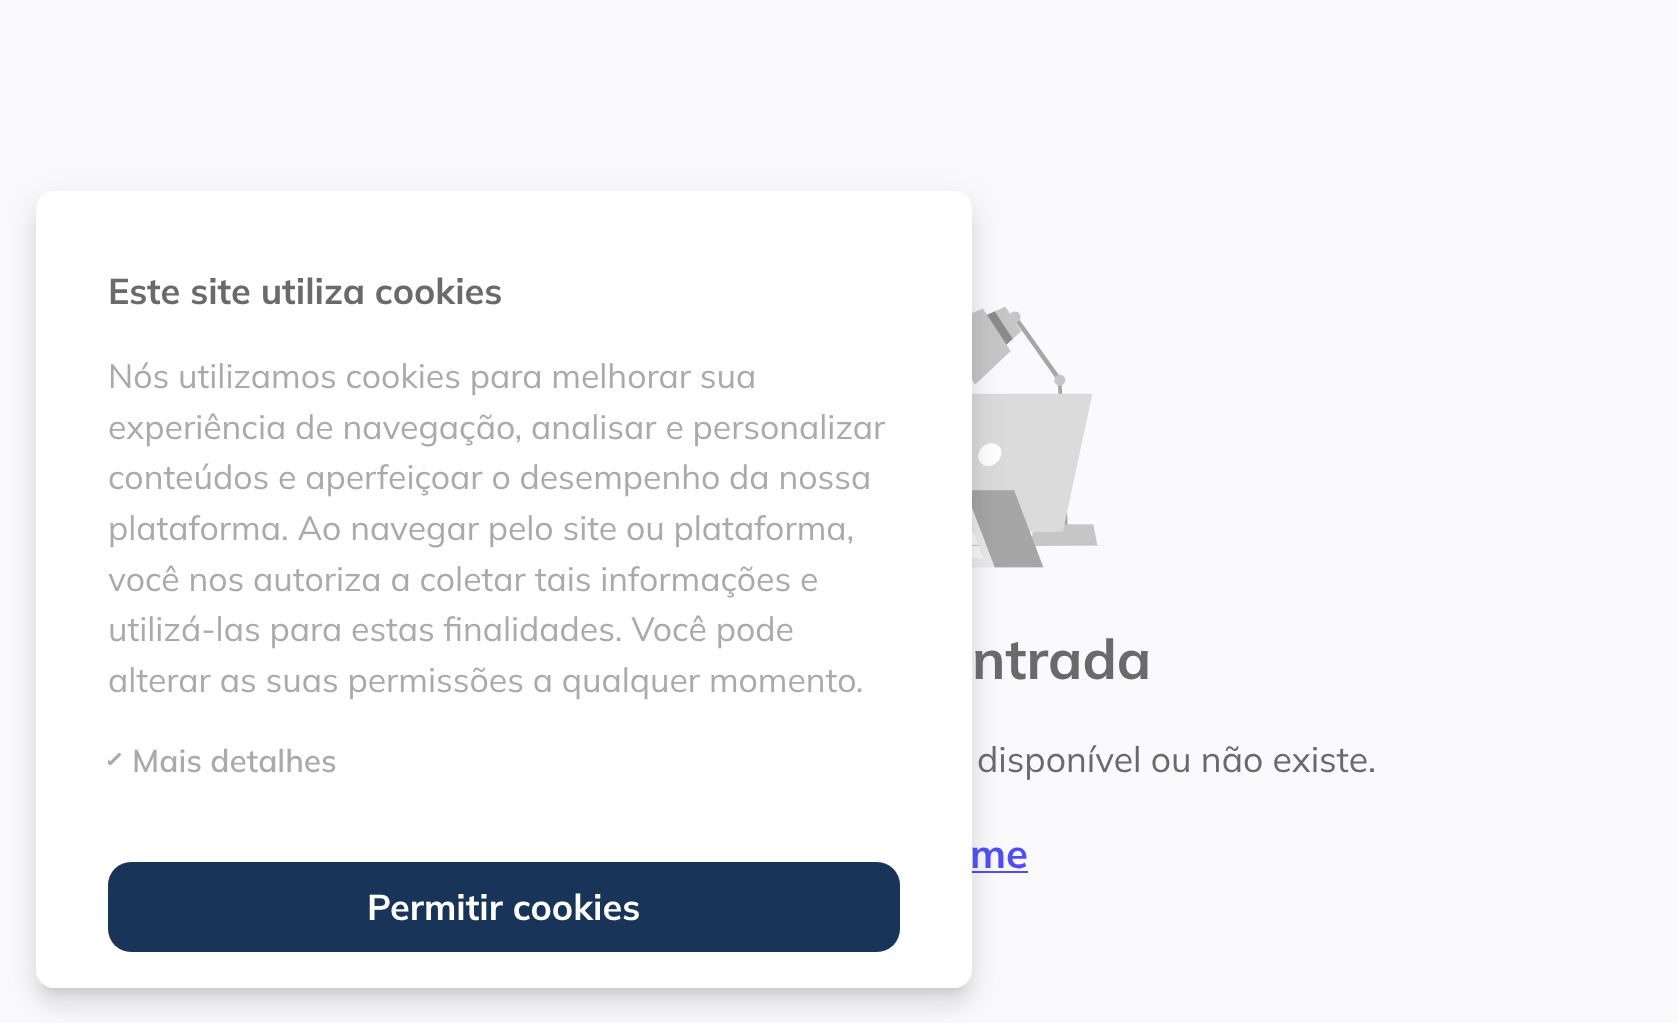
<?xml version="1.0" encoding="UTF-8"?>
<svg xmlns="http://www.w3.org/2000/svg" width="1678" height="1023">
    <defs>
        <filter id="blur1" x="-50%" y="-200%" width="200%" height="500%"><feGaussianBlur stdDeviation="16"/></filter>
        <filter id="blur2" x="-50%" y="-200%" width="200%" height="500%"><feGaussianBlur stdDeviation="11"/></filter>
        <filter id="blur3" x="-50%" y="-200%" width="200%" height="500%"><feGaussianBlur stdDeviation="5.5"/></filter>
    </defs>
    <rect width="100%" height="100%" fill="#FAFAFC"/>
    <image x="972" y="306" width="133" height="262" href="img_02.png"/>
    <rect x="972" y="871" width="56" height="2" fill="#4D4DFF"/>
    <rect x="32" y="194" width="945" height="805" rx="23" fill="#000000" fill-opacity="0.06" filter="url(#blur1)"/>
    <rect x="34" y="207" width="940" height="801" rx="20" fill="#000000" fill-opacity="0.07" filter="url(#blur2)"/>
    <rect x="43" y="209" width="922" height="783" rx="11" fill="#000000" fill-opacity="0.1" filter="url(#blur3)"/>
    <rect x="36" y="191" width="936" height="797" rx="18" fill="#FFFFFF"/>
    <text x="108" y="304" font-family="Mulish" font-size="36" font-weight="700" fill="#6A6A6A">Este site utiliza cookies</text>
    <text font-family="Mulish" font-size="33.75" fill="#AAAAAA">
        <tspan x="108" y="388">Nós utilizamos cookies para melhorar sua</tspan>
        <tspan x="108" y="439">experiência de navegação, analisar e personalizar</tspan>
        <tspan x="108" y="489">conteúdos e aperfeiçoar o desempenho da nossa</tspan>
        <tspan x="108" y="540">plataforma. Ao navegar pelo site ou plataforma,</tspan>
        <tspan x="108" y="591">você nos autoriza a coletar tais informações e</tspan>
        <tspan x="108" y="641">utilizá-las para estas finalidades. Você pode</tspan>
        <tspan x="108" y="692">alterar as suas permissões a qualquer momento.</tspan>
    </text>
    <image x="108" y="753" width="13" height="13" href="img_01.png"/>
    <text x="132" y="772" font-family="Mulish" font-size="31.5" font-weight="600" fill="#AAAAAA">Mais detalhes</text>
    <rect x="108" y="862" width="792" height="90" rx="23" fill="#183559"/>
    <text x="367" y="920" font-family="Mulish" font-size="36" font-weight="700" fill="#FFFFFF">Permitir cookies</text>
    <text x="972" y="679" font-family="Mulish" font-size="55.5" font-weight="700" fill="#6A6A6A">ntrada</text>
    <text x="977" y="772" font-family="Mulish" font-size="35.5" fill="#6A6A6A">disponível ou não existe.</text>
    <text x="970" y="868" font-family="Mulish" font-size="40" font-weight="700" fill="#4D4DFF">me</text>
</svg>
